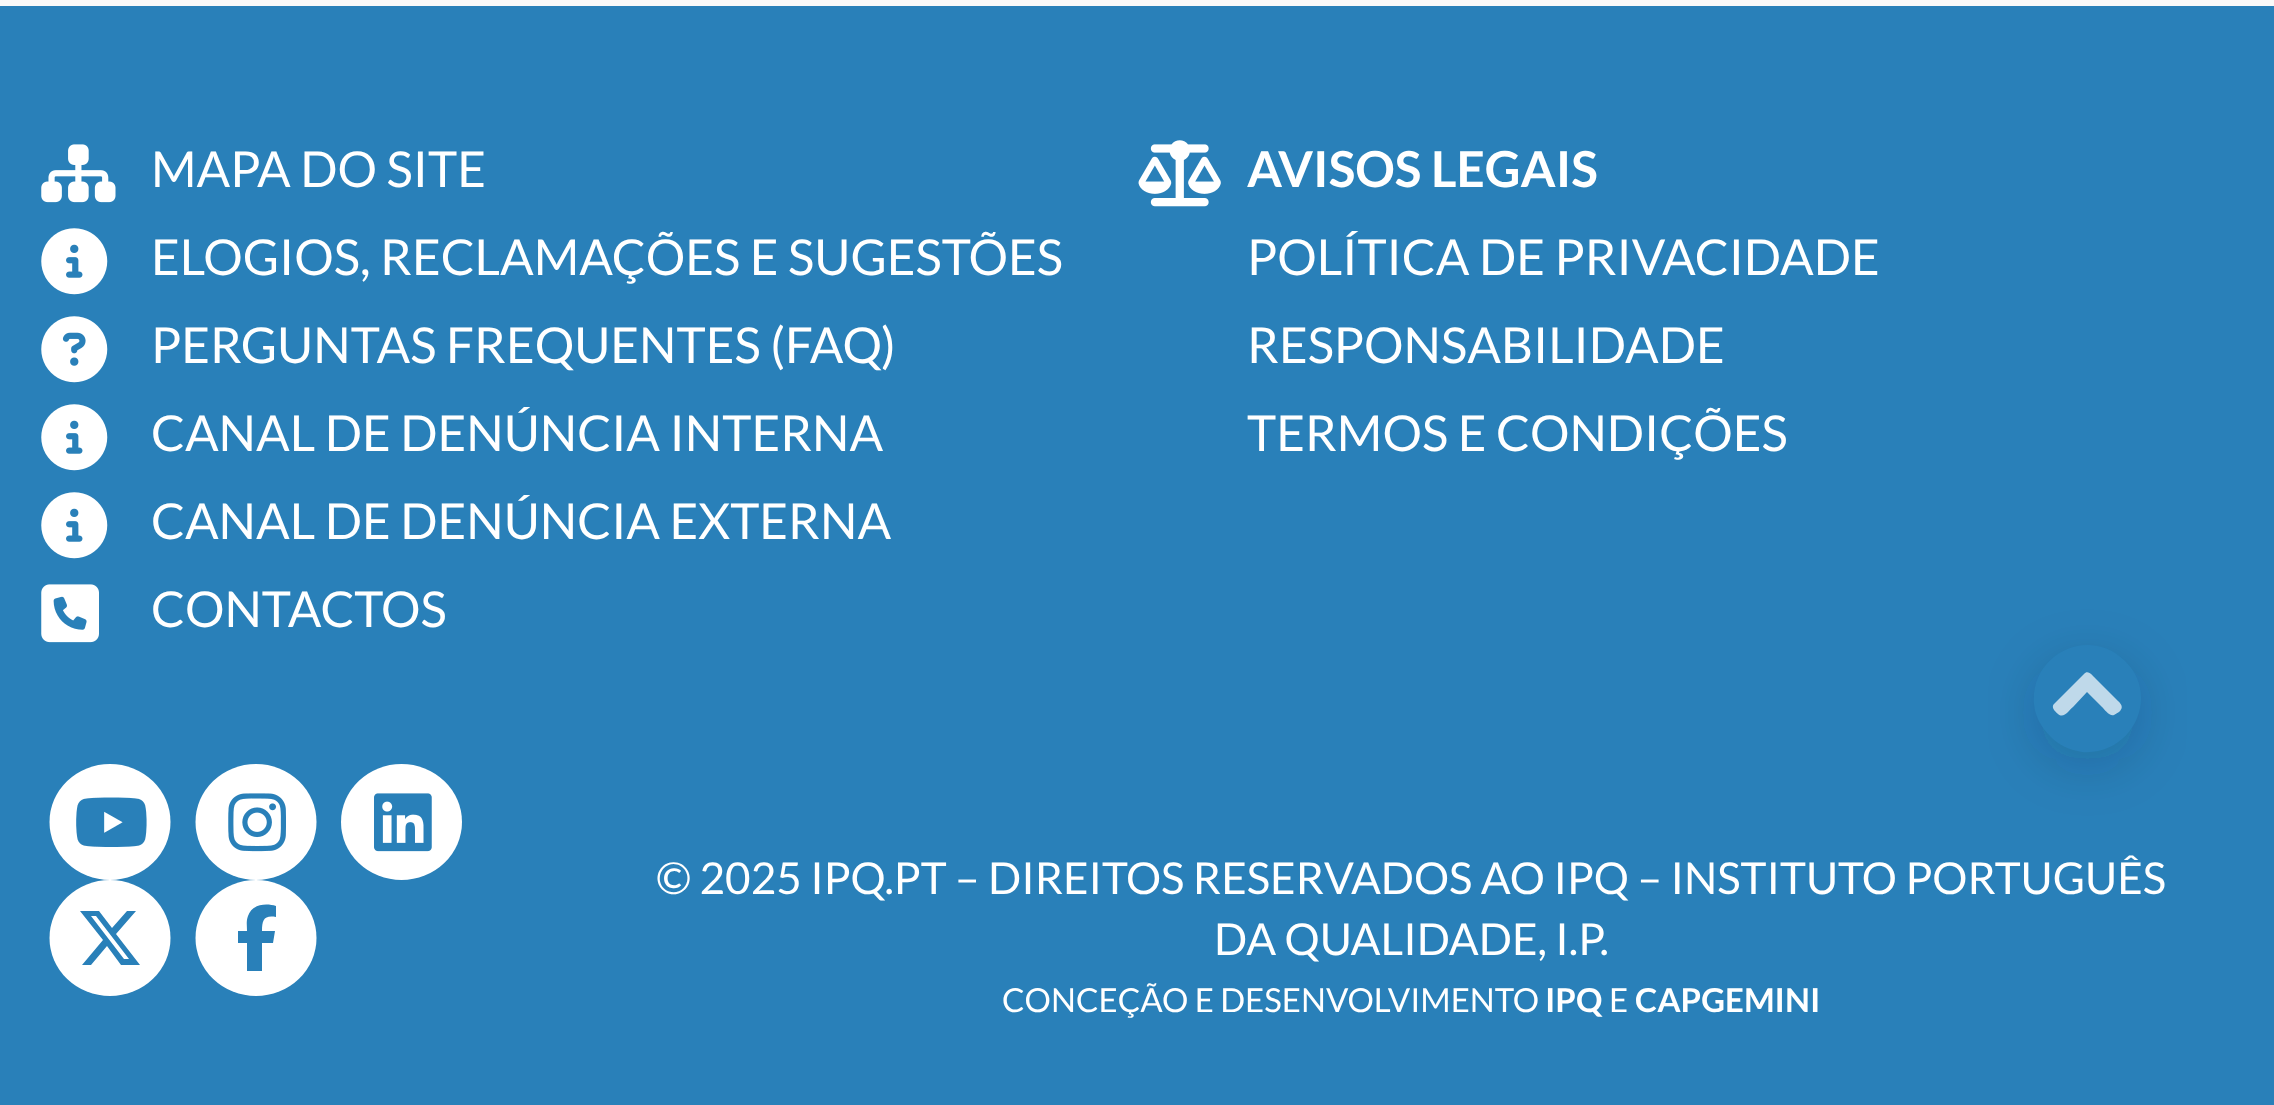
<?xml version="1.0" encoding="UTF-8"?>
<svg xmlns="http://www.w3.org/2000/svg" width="2274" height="1105">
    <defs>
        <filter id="blur1" x="-50%" y="-200%" width="200%" height="500%"><feGaussianBlur stdDeviation="27.5"/></filter>
    </defs>
    <rect width="100%" height="100%" fill="#2980B9"/>
    <rect x="0" y="0" width="2274" height="6" fill="#F9F9F9"/>
    <image x="41" y="144" width="75" height="59" href="img_01.png"/>
    <text x="151" y="187" font-family="Lato" font-size="49.5" fill="#FFFFFF">MAPA DO SITE</text>
    <image x="41" y="228" width="67" height="67" href="img_02.png"/>
    <text x="151" y="275" font-family="Lato" font-size="49.5" fill="#FFFFFF">ELOGIOS, RECLAMAÇÕES E SUGESTÕES</text>
    <image x="41" y="316" width="67" height="67" href="img_03.png"/>
    <text x="151" y="363" font-family="Lato" font-size="49.5" fill="#FFFFFF">PERGUNTAS FREQUENTES (FAQ)</text>
    <image x="41" y="404" width="67" height="67" href="img_02.png"/>
    <text x="151" y="451" font-family="Lato" font-size="49.5" fill="#FFFFFF">CANAL DE DENÚNCIA INTERNA</text>
    <image x="41" y="492" width="67" height="67" href="img_02.png"/>
    <text x="151" y="539" font-family="Lato" font-size="49.5" fill="#FFFFFF">CANAL DE DENÚNCIA EXTERNA</text>
    <image x="41" y="584" width="58" height="59" href="img_04.png"/>
    <text x="151" y="627" font-family="Lato" font-size="49.5" fill="#FFFFFF">CONTACTOS</text>
    <image x="1138" y="140" width="83" height="67" href="img_05.png"/>
    <text x="1247" y="187" font-family="Lato" font-size="49.5" font-weight="700" fill="#FFFFFF">AVISOS LEGAIS</text>
    <text font-family="Lato" font-size="49.5" fill="#FFFFFF">
        <tspan x="1247" y="275">POLÍTICA DE PRIVACIDADE</tspan>
        <tspan x="1247" y="363">RESPONSABILIDADE</tspan>
        <tspan x="1247" y="451">TERMOS E CONDIÇÕES</tspan>
    </text>
    <ellipse cx="110" cy="822" rx="60.5" ry="58" fill="#FFFFFF"/>
    <image x="76" y="797" width="71" height="50" href="img_06.png"/>
    <ellipse cx="256" cy="822" rx="60.5" ry="58" fill="#FFFFFF"/>
    <image x="228" y="793" width="58" height="59" href="img_07.png"/>
    <ellipse cx="401.5" cy="822" rx="60.5" ry="58" fill="#FFFFFF"/>
    <image x="374" y="793" width="58" height="59" href="img_08.png"/>
    <ellipse cx="110" cy="938" rx="60.5" ry="58" fill="#FFFFFF"/>
    <path d="M 127 911 H 136 H 127 H 136 L 116 934 L 140 965 H 121 L 107 946 L 91 965 H 82 L 103 940 L 80 911 H 99 L 112 928 Z M 124 959 H 129 H 124 H 129 L 96 916 H 91 Z" fill="#2980B9"/>
    <ellipse cx="256" cy="938" rx="60.5" ry="58" fill="#FFFFFF"/>
    <path d="M 247 943 V 971 V 943 V 971 H 262 V 943 H 273 L 275 931 H 262 C 262 920 264 915 276 917 V 906 C 266 903 252 904 248 916 C 246 921 247 926 247 931 H 238 V 943 Z" fill="#2980B9"/>
    <text x="656" y="894" font-family="Lato" font-size="44" fill="#FFFFFF">© 2025 IPQ.PT – DIREITOS RESERVADOS AO IPQ – INSTITUTO PORTUGUÊS</text>
    <text x="1214" y="955" font-family="Lato" font-size="44" fill="#FFFFFF">DA QUALIDADE, I.P.</text>
    <text x="1002" y="1012" font-family="Lato" font-size="33" fill="#FFFFFF">CONCEÇÃO E DESENVOLVIMENTO</text>
    <text x="1545" y="1012" font-family="Lato" font-size="33" font-weight="700" fill="#FFFFFF">IPQ</text>
    <text x="1609" y="1012" font-family="Lato" font-size="33" fill="#FFFFFF">E</text>
    <text x="1635" y="1012" font-family="Lato" font-size="33" font-weight="700" fill="#FFFFFF">CAPGEMINI</text>
    <rect x="2038" y="663" width="99" height="99" rx="49.5" fill="#0C2638" fill-opacity="0.2" filter="url(#blur1)"/>
    <circle cx="2087.5" cy="698.5" r="49.5" fill="#BFD9EA"/>
    <path d="M 2050 736 C 2041 727 2035 716 2034 704 C 2030 654 2089 625 2125 661 C 2161 696 2132 756 2082 752 C 2070 750 2058 745 2050 736 Z M 2084 674 L 2055 703 C 2050 707 2055 711 2058 714 C 2064 719 2069 710 2073 707 L 2087 692 L 2102 707 C 2104 709 2110 717 2114 715 L 2119 712 C 2125 706 2120 703 2115 698 L 2096 679 C 2093 676 2088 669 2084 674 Z" fill="#2980B9"/>
</svg>
